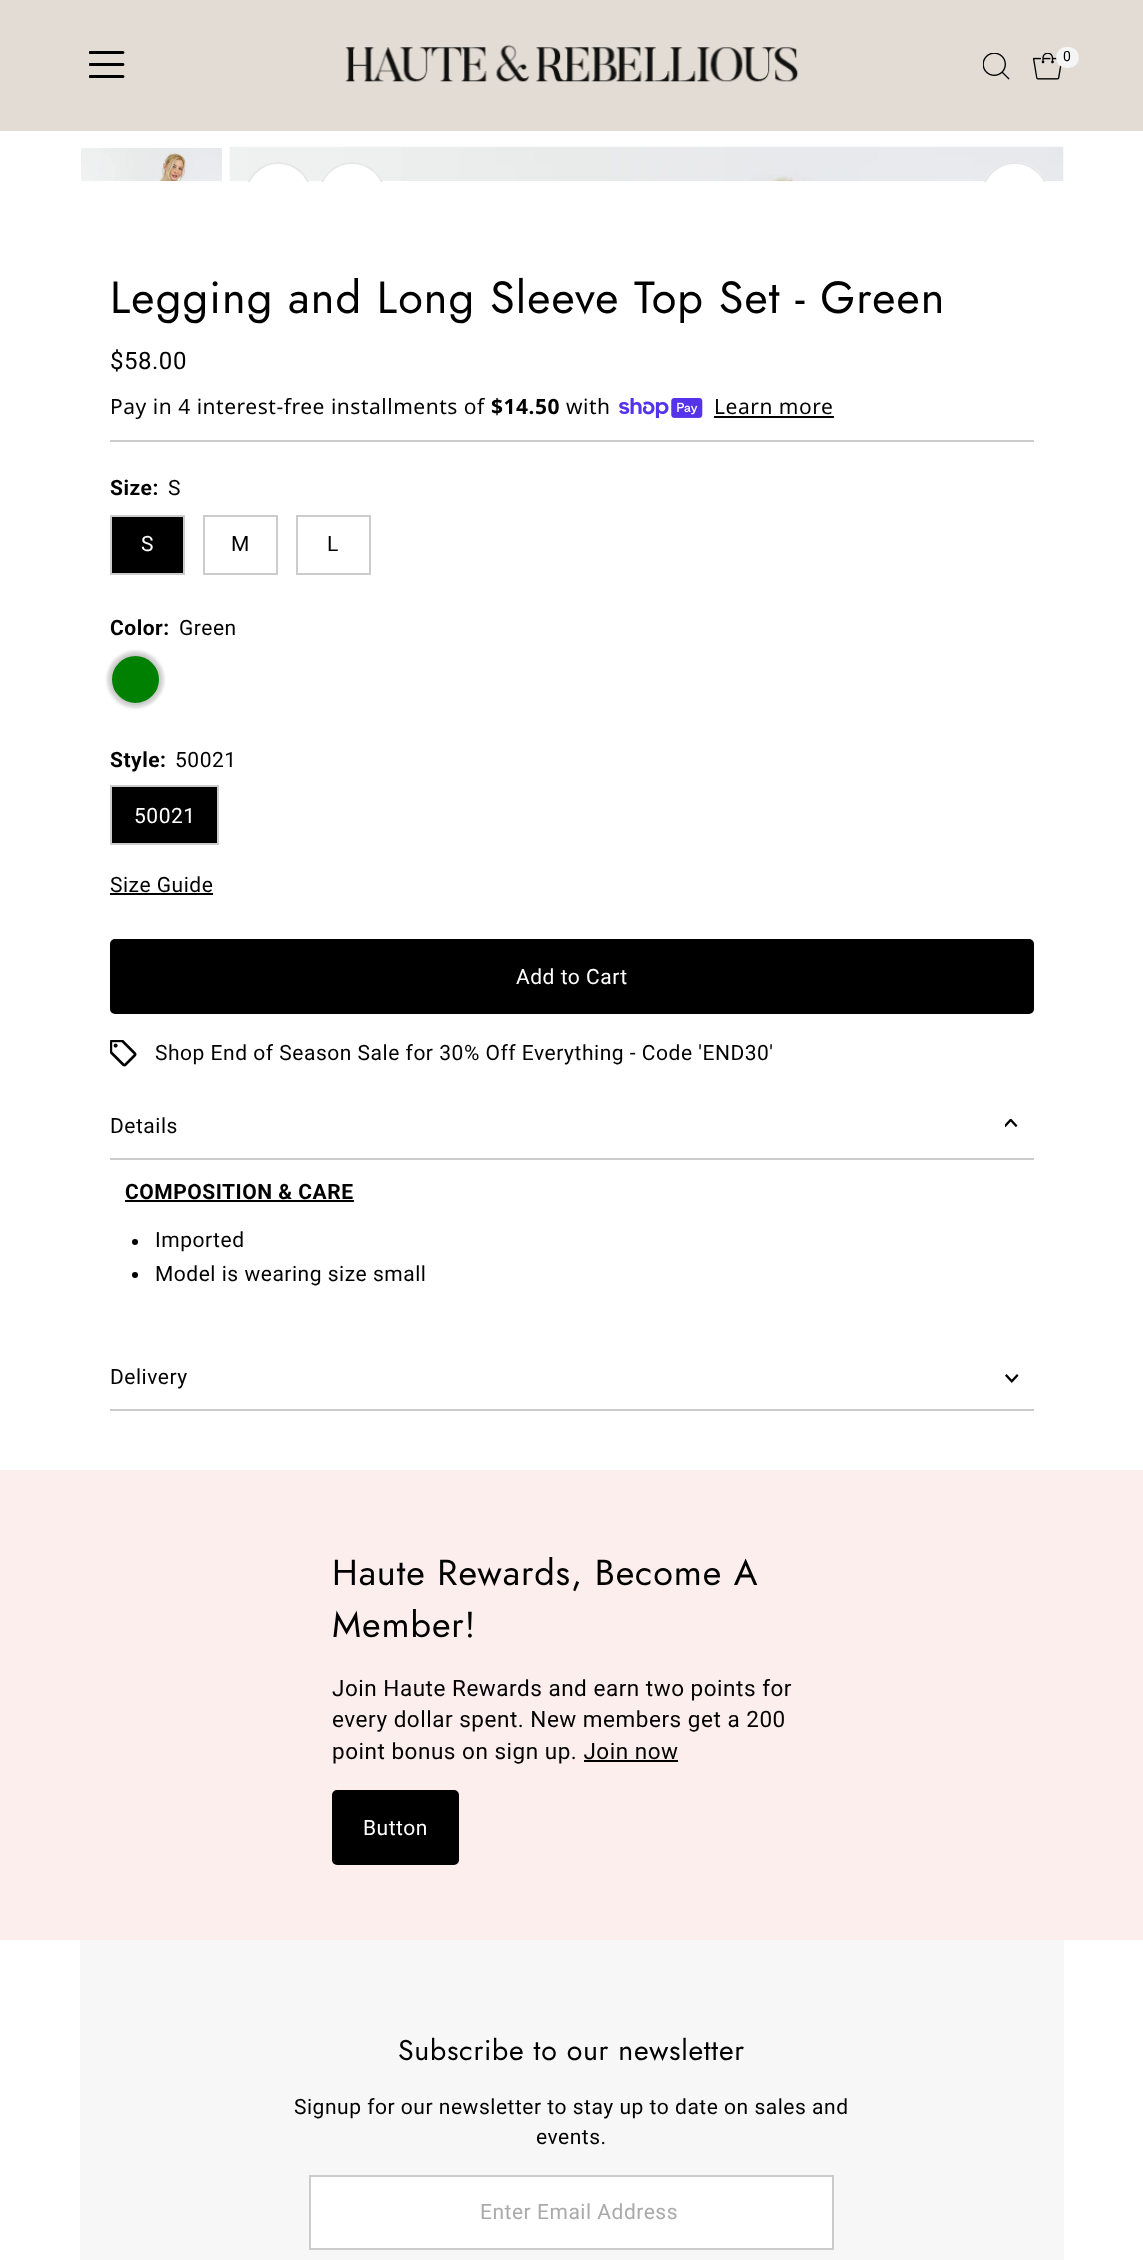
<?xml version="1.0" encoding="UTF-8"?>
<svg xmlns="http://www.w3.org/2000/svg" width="1143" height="2260">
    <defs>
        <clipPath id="clip1"><rect x="230" y="147" width="834" height="35"/></clipPath>
        <filter id="blur1" x="-50%" y="-200%" width="200%" height="500%"><feGaussianBlur stdDeviation="1.5"/></filter>
    </defs>
    <rect width="100%" height="100%" fill="#FFFFFF"/>
    <rect x="0" y="0" width="1143" height="131" fill="#E2DCD4"/>
    <image x="89" y="51" width="36" height="27" href="img_01.png"/>
    <image x="345" y="45" width="454" height="37" href="img_02.png"/>
    <image x="983" y="53" width="27" height="27" href="img_03.png"/>
    <image x="1032" y="53" width="30" height="27" href="img_04.png"/>
    <rect x="1056" y="47" width="23" height="21" rx="10.5" fill="#F5F5F5"/>
    <text x="1063" y="61" font-family="Roboto" font-size="14" letter-spacing="0.52" fill="#000000">0</text>
    <image x="81" y="148" width="141" height="33" href="img_05.png"/>
    <image x="229" y="147" width="1" height="34" href="img_06.png"/>
    <image x="230" y="146" width="834" height="35" href="img_07.png"/>
    <path d="M 1015 162 C 1034 162 1049 177 1049 196 V 182 H 981 V 196 C 981 177 996 162 1015 162 Z" fill="#FFFFFF"/>
    <g clip-path="url(#clip1)">
        <circle cx="1015" cy="196" r="33" fill="none" stroke="#E7E7E7" stroke-width="2"/>
    </g>
    <path d="M 278.5 162 C 297 162 312 177 312 195.5 V 182 H 245 V 195.5 C 245 177 260 162 278.5 162 Z" fill="#FFFFFF"/>
    <g clip-path="url(#clip1)">
        <rect x="246" y="163" width="65" height="66" rx="32.5" fill="none" stroke="#E7E7E7" stroke-width="2"/>
    </g>
    <path d="M 352 162 C 371 162 386 177 386 196 V 182 H 318 V 196 C 318 177 333 162 352 162 Z" fill="#FFFFFF"/>
    <g clip-path="url(#clip1)">
        <circle cx="352" cy="196" r="33" fill="none" stroke="#E7E7E7" stroke-width="2"/>
    </g>
    <rect x="110" y="440" width="924" height="2" fill="#CCCCCC"/>
    <text x="110" y="313" font-family="Jost" font-size="45" letter-spacing="1.1" fill="#000000">Legging and Long Sleeve Top Set - Green</text>
    <text x="110" y="369" font-family="Roboto" font-size="24" letter-spacing="0.52" fill="#000000">$58.00</text>
    <text x="110" y="414" font-family="Noto Sans" font-size="21" letter-spacing="0.52" fill="#000000">Pay in 4 interest-free installments of</text>
    <text x="491" y="414" font-family="Noto Sans" font-size="21" font-weight="700" letter-spacing="0.52" fill="#000000">$14.50</text>
    <text x="566" y="414" font-family="Noto Sans" font-size="21" letter-spacing="0.52" fill="#000000">with</text>
    <image x="619" y="398" width="84" height="21" href="img_08.png"/>
    <text x="714" y="414" font-family="Noto Sans" font-size="21" letter-spacing="0.52" fill="#000000">Learn more</text>
    <rect x="714" y="416" width="120" height="2" fill="#000000"/>
    <text x="110" y="495" font-family="Roboto" font-size="21" font-weight="700" letter-spacing="0.52" fill="#000000">Size:</text>
    <text x="168" y="495" font-family="Roboto" font-size="21" letter-spacing="0.52" fill="#000000">S</text>
    <rect x="111" y="516" width="73" height="58" fill="#000000" stroke="#CCCCCC" stroke-width="2"/>
    <text x="141" y="551" font-family="Roboto" font-size="21" letter-spacing="0.52" fill="#FFFFFF">S</text>
    <rect x="204" y="516" width="73" height="58" fill="none" stroke="#CCCCCC" stroke-width="2"/>
    <text x="231" y="551" font-family="Roboto" font-size="21" letter-spacing="0.52" fill="#000000">M</text>
    <rect x="297" y="516" width="73" height="58" fill="none" stroke="#CCCCCC" stroke-width="2"/>
    <text x="327" y="551" font-family="Roboto" font-size="21" letter-spacing="0.52" fill="#000000">L</text>
    <text x="110" y="635" font-family="Roboto" font-size="21" font-weight="700" letter-spacing="0.52" fill="#000000">Color:</text>
    <text x="179" y="635" font-family="Roboto" font-size="21" letter-spacing="0.52" fill="#000000">Green</text>
    <rect x="107" y="651" width="57" height="57" rx="28.5" fill="#D6D6D6" filter="url(#blur1)"/>
    <circle cx="135.5" cy="679.5" r="24.5" fill="#008000" stroke="#CCCCCC" stroke-width="2"/>
    <text x="110" y="767" font-family="Roboto" font-size="21" font-weight="700" letter-spacing="0.52" fill="#000000">Style:</text>
    <text x="175" y="767" font-family="Roboto" font-size="21" letter-spacing="0.52" fill="#000000">50021</text>
    <rect x="111" y="786" width="107" height="58" fill="#000000" stroke="#CCCCCC" stroke-width="2"/>
    <text x="134" y="823" font-family="Roboto" font-size="21" letter-spacing="0.52" fill="#FFFFFF">50021</text>
    <text x="110" y="892" font-family="Roboto" font-size="21" letter-spacing="0.52" fill="#000000">Size Guide</text>
    <rect x="110" y="893" width="103" height="2" fill="#000000"/>
    <rect x="110" y="939" width="924" height="75" rx="5" fill="#000000"/>
    <text x="516" y="984" font-family="Roboto" font-size="21" letter-spacing="0.52" fill="#FFFFFF">Add to Cart</text>
    <image x="110" y="1040" width="27" height="27" href="img_09.png"/>
    <text x="155" y="1060" font-family="Roboto" font-size="21" letter-spacing="0.52" fill="#000000">Shop End of Season Sale for 30% Off Everything - Code 'END30'</text>
    <rect x="110" y="1158" width="924" height="2" fill="#CCCCCC"/>
    <text x="110" y="1133" font-family="Roboto" font-size="21" letter-spacing="0.52" fill="#000000">Details</text>
    <image x="1005" y="1119" width="13" height="9" href="img_10.png"/>
    <text x="125" y="1199" font-family="Roboto" font-size="21" font-weight="700" letter-spacing="0.52" fill="#000000">COMPOSITION &amp; CARE</text>
    <rect x="125" y="1200" width="229" height="2" fill="#000000"/>
    <circle cx="135" cy="1242" r="3" fill="#000000"/>
    <text x="155" y="1247" font-family="Roboto" font-size="21" letter-spacing="0.52" fill="#000000">Imported</text>
    <circle cx="135" cy="1275" r="3" fill="#000000"/>
    <text x="155" y="1281" font-family="Roboto" font-size="21" letter-spacing="0.52" fill="#000000">Model is wearing size small</text>
    <rect x="110" y="1409" width="924" height="2" fill="#CCCCCC"/>
    <text x="110" y="1384" font-family="Roboto" font-size="21" letter-spacing="0.52" fill="#000000">Delivery</text>
    <image x="1005" y="1374" width="14" height="9" href="img_11.png"/>
    <rect x="0" y="1470" width="1143" height="470" fill="#FDEEEE"/>
    <text font-family="Jost" font-size="36" letter-spacing="0.9" fill="#000000">
        <tspan x="332" y="1585">Haute Rewards, Become A</tspan>
        <tspan x="332" y="1637">Member!</tspan>
    </text>
    <text font-family="Roboto" font-size="22.5" letter-spacing="0.52" fill="#000000">
        <tspan x="332" y="1696">Join Haute Rewards and earn two points for</tspan>
        <tspan x="332" y="1727">every dollar spent. New members get a 200</tspan>
        <tspan x="332" y="1759">point bonus on sign up. Join now</tspan>
    </text>
    <rect x="584" y="1760" width="94" height="2" fill="#000000"/>
    <rect x="333" y="1791" width="125" height="73" rx="4" fill="#000000" stroke="#000000" stroke-width="2"/>
    <text x="363" y="1835" font-family="Roboto" font-size="21" letter-spacing="0.52" fill="#FFFFFF">Button</text>
    <rect x="80" y="1940" width="984" height="320" fill="#F7F7F7"/>
    <text x="398" y="2060" font-family="Jost" font-size="28.5" letter-spacing="0.7" fill="#000000">Subscribe to our newsletter</text>
    <text x="294" y="2114" font-family="Roboto" font-size="21" letter-spacing="0.52" fill="#000000">Signup for our newsletter to stay up to date on sales and</text>
    <text x="536" y="2144" font-family="Roboto" font-size="21" letter-spacing="0.52" fill="#000000">events.</text>
    <rect x="310" y="2176" width="523" height="73" fill="#FFFFFF" stroke="#CCCCCC" stroke-width="2"/>
    <text x="480" y="2219" font-family="Roboto" font-size="21" letter-spacing="0.52" fill="#AAAAAA">Enter Email Address</text>
</svg>
